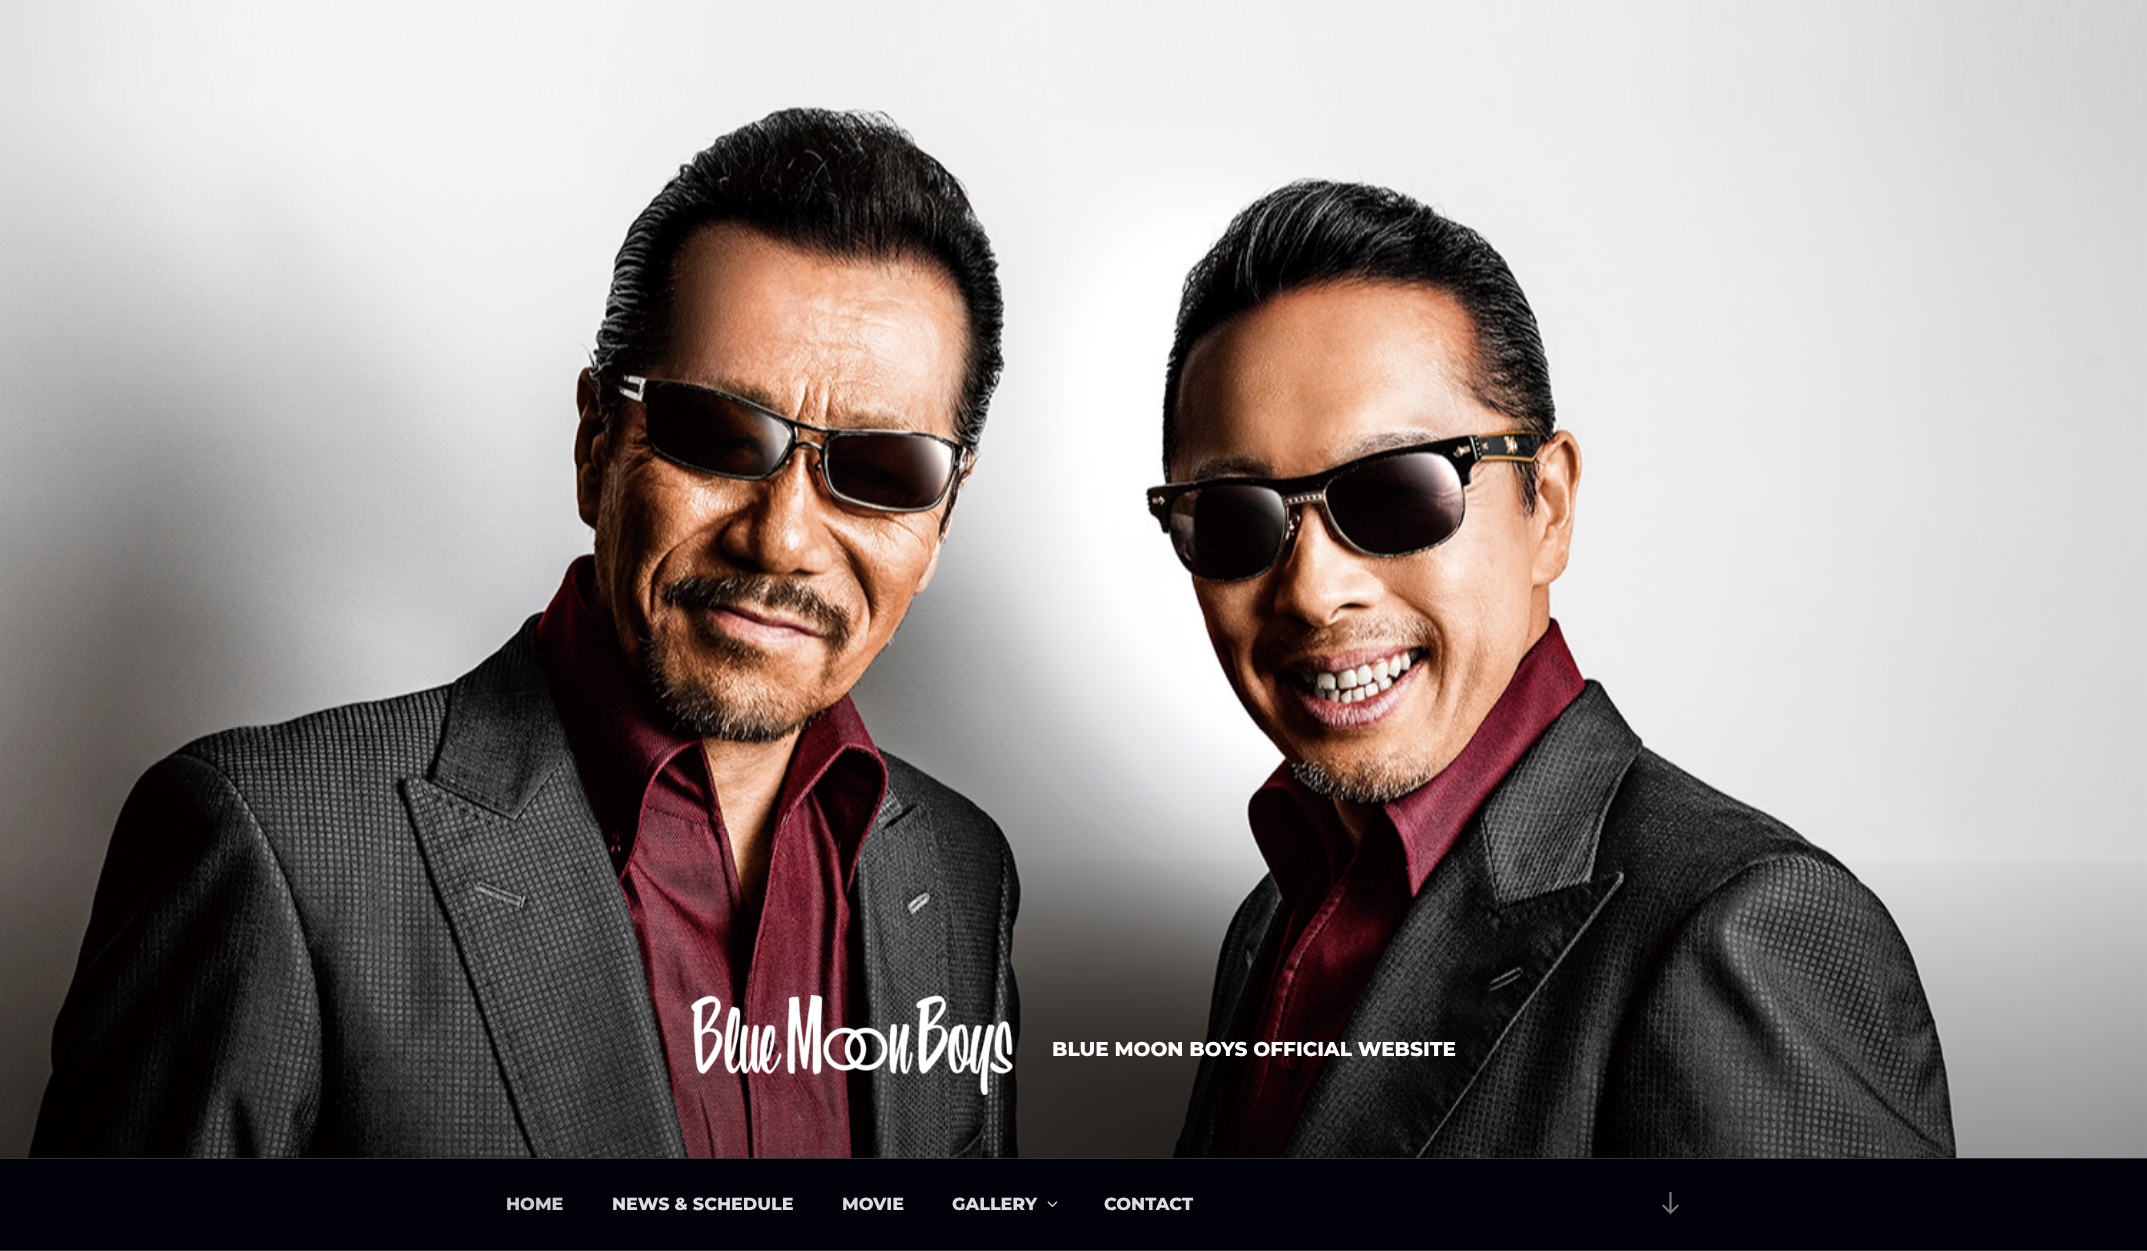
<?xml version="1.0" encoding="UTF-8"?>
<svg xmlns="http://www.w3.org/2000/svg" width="2147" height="1251">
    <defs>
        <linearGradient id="g1" gradientUnits="userSpaceOnUse" x1="1074" y1="839" x2="1074" y2="1251"><stop offset="0" stop-color="#000000" stop-opacity="0"/><stop offset="0.75" stop-color="#000000" stop-opacity="0.3"/><stop offset="1" stop-color="#000000" stop-opacity="0.3"/></linearGradient>
    </defs>
    <rect width="100%" height="100%" fill="#FFFFFF"/>
    <image x="0" y="0" width="2147" height="1158" href="img_01.png"/>
    <rect x="0" y="861" width="2147" height="297" fill="url(#g1)"/>
    <image x="691" y="995" width="322" height="100" href="img_02.png"/>
    <text x="1052" y="1056" font-family="Montserrat" font-size="20" font-weight="800" fill="#FFFFFF">BLUE MOON BOYS OFFICIAL WEBSITE</text>
    <rect x="0" y="1159" width="2147" height="91" fill="#010209"/>
    <rect x="0" y="1158" width="2147" height="1" fill="#333333"/>
    <rect x="0" y="1250" width="2147" height="1" fill="#333333"/>
    <text x="506" y="1210" font-family="Montserrat" font-size="17.5" font-weight="800" fill="#CCCCCC">HOME</text>
    <text x="612" y="1210" font-family="Montserrat" font-size="17.5" font-weight="800" fill="#DDDDDD">NEWS &amp; SCHEDULE</text>
    <text x="842" y="1210" font-family="Montserrat" font-size="17.5" font-weight="800" fill="#DDDDDD">MOVIE</text>
    <text x="952" y="1210" font-family="Montserrat" font-size="17.5" font-weight="800" fill="#DDDDDD">GALLERY</text>
    <image x="1047" y="1201" width="11" height="6" href="img_03.png"/>
    <text x="1104" y="1210" font-family="Montserrat" font-size="17.5" font-weight="800" fill="#DDDDDD">CONTACT</text>
    <image x="1662" y="1192" width="17" height="22" href="img_04.png"/>
</svg>
